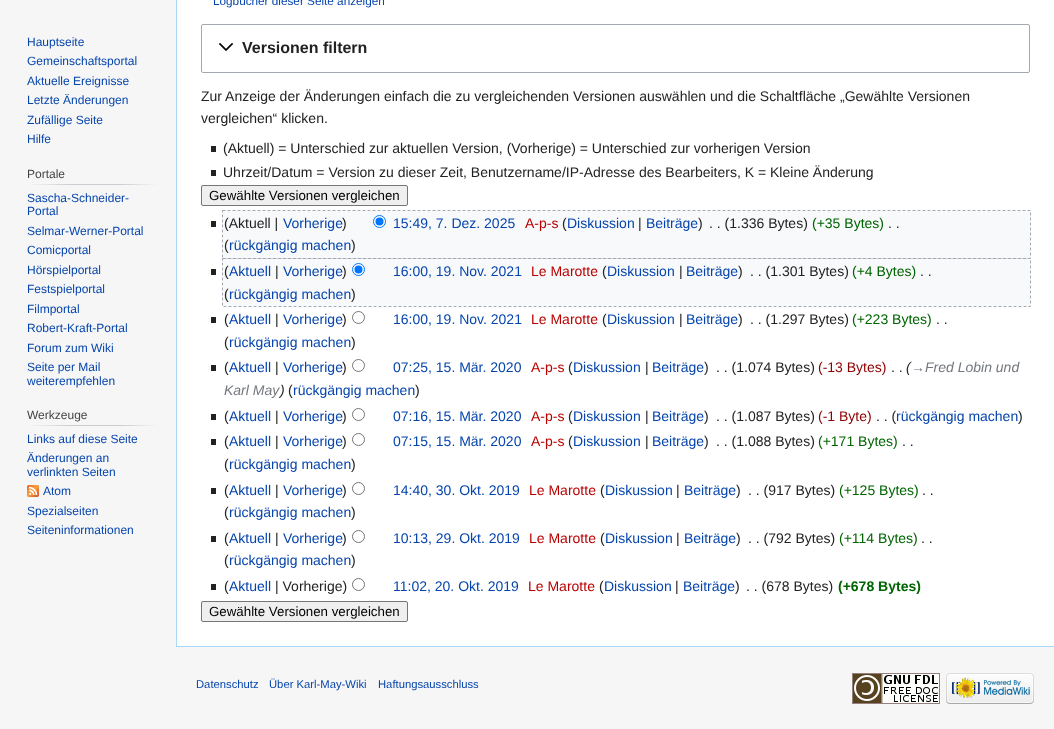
<?xml version="1.0" encoding="UTF-8"?>
<svg xmlns="http://www.w3.org/2000/svg" width="1054" height="729">
    <defs>
        <linearGradient id="g1" gradientUnits="userSpaceOnUse" x1="27" y1="185" x2="158" y2="185"><stop offset="0" stop-color="#F6F6F6"/><stop offset="0.35" stop-color="#C8CCD1"/><stop offset="0.7" stop-color="#C8CCD1"/><stop offset="1" stop-color="#F6F6F6"/></linearGradient>
        <linearGradient id="g2" gradientUnits="userSpaceOnUse" x1="27" y1="426" x2="158" y2="426"><stop offset="0" stop-color="#F6F6F6"/><stop offset="0.35" stop-color="#C8CCD1"/><stop offset="0.7" stop-color="#C8CCD1"/><stop offset="1" stop-color="#F6F6F6"/></linearGradient>
    </defs>
    <rect width="100%" height="100%" fill="#F6F6F6"/>
    <text font-family="Liberation Sans" font-size="12" fill="#0645AD">
        <tspan x="27" y="46">Hauptseite</tspan>
        <tspan x="27" y="65">Gemeinschaftsportal</tspan>
        <tspan x="27" y="85">Aktuelle Ereignisse</tspan>
        <tspan x="27" y="104">Letzte Änderungen</tspan>
        <tspan x="27" y="124">Zufällige Seite</tspan>
        <tspan x="27" y="143">Hilfe</tspan>
    </text>
    <text x="27" y="178" font-family="Liberation Sans" font-size="12" fill="#444444">Portale</text>
    <rect x="27" y="184" width="131" height="1" fill="url(#g1)"/>
    <text font-family="Liberation Sans" font-size="12" fill="#0645AD">
        <tspan x="27" y="202">Sascha-Schneider-</tspan>
        <tspan x="27" y="215">Portal</tspan>
        <tspan x="27" y="235">Selmar-Werner-Portal</tspan>
        <tspan x="27" y="254">Comicportal</tspan>
        <tspan x="27" y="274">Hörspielportal</tspan>
        <tspan x="27" y="293">Festspielportal</tspan>
        <tspan x="27" y="313">Filmportal</tspan>
        <tspan x="27" y="332">Robert-Kraft-Portal</tspan>
        <tspan x="27" y="352">Forum zum Wiki</tspan>
        <tspan x="27" y="371">Seite per Mail</tspan>
        <tspan x="27" y="385">weiterempfehlen</tspan>
    </text>
    <text x="27" y="419" font-family="Liberation Sans" font-size="12" fill="#444444">Werkzeuge</text>
    <rect x="27" y="425" width="131" height="1" fill="url(#g2)"/>
    <text font-family="Liberation Sans" font-size="12" fill="#0645AD">
        <tspan x="27" y="443">Links auf diese Seite</tspan>
        <tspan x="27" y="462">Änderungen an</tspan>
        <tspan x="27" y="476">verlinkten Seiten</tspan>
    </text>
    <image x="27" y="485" width="12" height="12" href="img_01.png"/>
    <text x="43" y="495" font-family="Liberation Sans" font-size="12" fill="#0645AD">Atom</text>
    <text font-family="Liberation Sans" font-size="12" fill="#0645AD">
        <tspan x="27" y="515">Spezialseiten</tspan>
        <tspan x="27" y="534">Seiteninformationen</tspan>
    </text>
    <rect x="177" y="0" width="877" height="646" fill="#FFFFFF"/>
    <rect x="176" y="646" width="878" height="1" fill="#A7D7F9"/>
    <rect x="176" y="0" width="1" height="647" fill="#A7D7F9"/>
    <text x="213" y="5" font-family="Liberation Sans" font-size="11.75" fill="#0645AD">Logbücher dieser Seite anzeigen</text>
    <rect x="201.5" y="24.5" width="828" height="48" rx="1.5" fill="none" stroke="#A2A9B1"/>
    <image x="219" y="43" width="15" height="8" href="img_02.png"/>
    <text x="242" y="53" font-family="Liberation Sans" font-size="16" font-weight="700" fill="#222222">Versionen filtern</text>
    <text font-family="Liberation Sans" font-size="14" fill="#222222">
        <tspan x="201" y="101">Zur Anzeige der Änderungen einfach die zu vergleichenden Versionen auswählen und die Schaltfläche „Gewählte Versionen</tspan>
        <tspan x="201" y="123">vergleichen“ klicken.</tspan>
    </text>
    <rect x="211" y="146" width="5" height="6" fill="#222222"/>
    <text x="223" y="153" font-family="Liberation Sans" font-size="14" fill="#222222">(Aktuell) = Unterschied zur aktuellen Version, (Vorherige) = Unterschied zur vorherigen Version</text>
    <rect x="211" y="170" width="5" height="6" fill="#222222"/>
    <text x="223" y="177" font-family="Liberation Sans" font-size="14" fill="#222222">Uhrzeit/Datum = Version zu dieser Zeit, Benutzername/IP-Adresse des Bearbeiters, K = Kleine Änderung</text>
    <rect x="201.5" y="185.5" width="206" height="20" rx="1.5" fill="#EFEFEF" stroke="#767676"/>
    <text x="209" y="200" font-family="Liberation Sans" font-size="13.3" fill="#000000">Gewählte Versionen vergleichen</text>
    <rect x="223" y="211" width="807" height="47" fill="#F8F9FA"/>
    <rect x="211" y="221" width="5" height="6" fill="#222222"/>
    <text x="224" y="228" font-family="Liberation Sans" font-size="14" fill="#222222">(Aktuell |</text>
    <text x="283" y="228" font-family="Liberation Sans" font-size="14" fill="#0645AD">Vorherige</text>
    <text x="342" y="228" font-family="Liberation Sans" font-size="14" fill="#222222">)</text>
    <circle cx="379.5" cy="221.5" r="6" fill="#FFFFFF" stroke="#0075FF"/>
    <circle cx="379.5" cy="221.5" r="4" fill="#0075FF"/>
    <text x="393" y="228" font-family="Liberation Sans" font-size="14" fill="#0645AD">15:49, 7. Dez. 2025</text>
    <text x="525" y="228" font-family="Liberation Sans" font-size="14" fill="#BA0000">A-p-s</text>
    <text x="562" y="228" font-family="Liberation Sans" font-size="14" fill="#222222">(</text>
    <text x="567" y="228" font-family="Liberation Sans" font-size="14" fill="#0645AD">Diskussion</text>
    <text x="638" y="228" font-family="Liberation Sans" font-size="14" fill="#222222">|</text>
    <text x="646" y="228" font-family="Liberation Sans" font-size="14" fill="#0645AD">Beiträge</text>
    <text x="698" y="228" font-family="Liberation Sans" font-size="14" fill="#222222">)</text>
    <text x="709" y="228" font-family="Liberation Sans" font-size="14" fill="#222222">. . (1.336 Bytes)</text>
    <text x="812" y="228" font-family="Liberation Sans" font-size="14" fill="#006400">(+35 Bytes)</text>
    <text x="888" y="228" font-family="Liberation Sans" font-size="14" fill="#222222">. .</text>
    <text x="224" y="250" font-family="Liberation Sans" font-size="14" fill="#222222">(</text>
    <text x="229" y="250" font-family="Liberation Sans" font-size="14" fill="#0645AD">rückgängig machen</text>
    <text x="351" y="250" font-family="Liberation Sans" font-size="14" fill="#222222">)</text>
    <path d="M 222.5 210.5 H 1030.5 V 258.5 H 222.5 Z" fill="none" stroke="#A2A9B1" stroke-dasharray="3 2"/>
    <rect x="223" y="259" width="807" height="47" fill="#F8F9FA"/>
    <rect x="211" y="269" width="5" height="6" fill="#222222"/>
    <text x="224" y="276" font-family="Liberation Sans" font-size="14" fill="#222222">(</text>
    <text x="229" y="276" font-family="Liberation Sans" font-size="14" fill="#0645AD">Aktuell</text>
    <text x="275" y="276" font-family="Liberation Sans" font-size="14" fill="#222222">|</text>
    <text x="283" y="276" font-family="Liberation Sans" font-size="14" fill="#0645AD">Vorherige</text>
    <text x="342" y="276" font-family="Liberation Sans" font-size="14" fill="#222222">)</text>
    <circle cx="358.5" cy="269.5" r="6" fill="#FFFFFF" stroke="#0075FF"/>
    <circle cx="358.5" cy="269.5" r="4" fill="#0075FF"/>
    <text x="393" y="276" font-family="Liberation Sans" font-size="14" fill="#0645AD">16:00, 19. Nov. 2021</text>
    <text x="531" y="276" font-family="Liberation Sans" font-size="14" fill="#BA0000">Le Marotte</text>
    <text x="602" y="276" font-family="Liberation Sans" font-size="14" fill="#222222">(</text>
    <text x="607" y="276" font-family="Liberation Sans" font-size="14" fill="#0645AD">Diskussion</text>
    <text x="679" y="276" font-family="Liberation Sans" font-size="14" fill="#222222">|</text>
    <text x="686" y="276" font-family="Liberation Sans" font-size="14" fill="#0645AD">Beiträge</text>
    <text x="738" y="276" font-family="Liberation Sans" font-size="14" fill="#222222">)</text>
    <text x="750" y="276" font-family="Liberation Sans" font-size="14" fill="#222222">. . (1.301 Bytes)</text>
    <text x="852" y="276" font-family="Liberation Sans" font-size="14" fill="#006400">(+4 Bytes)</text>
    <text x="920" y="276" font-family="Liberation Sans" font-size="14" fill="#222222">. .</text>
    <text x="224" y="299" font-family="Liberation Sans" font-size="14" fill="#222222">(</text>
    <text x="229" y="299" font-family="Liberation Sans" font-size="14" fill="#0645AD">rückgängig machen</text>
    <text x="351" y="299" font-family="Liberation Sans" font-size="14" fill="#222222">)</text>
    <path d="M 222.5 258.5 H 1030.5 V 306.5 H 222.5 Z" fill="none" stroke="#A2A9B1" stroke-dasharray="3 2"/>
    <rect x="211" y="317" width="5" height="6" fill="#222222"/>
    <text x="224" y="324" font-family="Liberation Sans" font-size="14" fill="#222222">(</text>
    <text x="229" y="324" font-family="Liberation Sans" font-size="14" fill="#0645AD">Aktuell</text>
    <text x="275" y="324" font-family="Liberation Sans" font-size="14" fill="#222222">|</text>
    <text x="283" y="324" font-family="Liberation Sans" font-size="14" fill="#0645AD">Vorherige</text>
    <text x="342" y="324" font-family="Liberation Sans" font-size="14" fill="#222222">)</text>
    <circle cx="358.5" cy="317.5" r="6" fill="none" stroke="#767676"/>
    <text x="393" y="324" font-family="Liberation Sans" font-size="14" fill="#0645AD">16:00, 19. Nov. 2021</text>
    <text x="531" y="324" font-family="Liberation Sans" font-size="14" fill="#BA0000">Le Marotte</text>
    <text x="602" y="324" font-family="Liberation Sans" font-size="14" fill="#222222">(</text>
    <text x="607" y="324" font-family="Liberation Sans" font-size="14" fill="#0645AD">Diskussion</text>
    <text x="679" y="324" font-family="Liberation Sans" font-size="14" fill="#222222">|</text>
    <text x="686" y="324" font-family="Liberation Sans" font-size="14" fill="#0645AD">Beiträge</text>
    <text x="738" y="324" font-family="Liberation Sans" font-size="14" fill="#222222">)</text>
    <text x="750" y="324" font-family="Liberation Sans" font-size="14" fill="#222222">. . (1.297 Bytes)</text>
    <text x="852" y="324" font-family="Liberation Sans" font-size="14" fill="#006400">(+223 Bytes)</text>
    <text x="936" y="324" font-family="Liberation Sans" font-size="14" fill="#222222">. .</text>
    <text x="224" y="347" font-family="Liberation Sans" font-size="14" fill="#222222">(</text>
    <text x="229" y="347" font-family="Liberation Sans" font-size="14" fill="#0645AD">rückgängig machen</text>
    <text x="351" y="347" font-family="Liberation Sans" font-size="14" fill="#222222">)</text>
    <rect x="211" y="365" width="5" height="6" fill="#222222"/>
    <text x="224" y="372" font-family="Liberation Sans" font-size="14" fill="#222222">(</text>
    <text x="229" y="372" font-family="Liberation Sans" font-size="14" fill="#0645AD">Aktuell</text>
    <text x="275" y="372" font-family="Liberation Sans" font-size="14" fill="#222222">|</text>
    <text x="283" y="372" font-family="Liberation Sans" font-size="14" fill="#0645AD">Vorherige</text>
    <text x="342" y="372" font-family="Liberation Sans" font-size="14" fill="#222222">)</text>
    <circle cx="358.5" cy="365.5" r="6" fill="none" stroke="#767676"/>
    <text x="393" y="372" font-family="Liberation Sans" font-size="14" fill="#0645AD">07:25, 15. Mär. 2020</text>
    <text x="531" y="372" font-family="Liberation Sans" font-size="14" fill="#BA0000">A-p-s</text>
    <text x="568" y="372" font-family="Liberation Sans" font-size="14" fill="#222222">(</text>
    <text x="573" y="372" font-family="Liberation Sans" font-size="14" fill="#0645AD">Diskussion</text>
    <text x="645" y="372" font-family="Liberation Sans" font-size="14" fill="#222222">|</text>
    <text x="652" y="372" font-family="Liberation Sans" font-size="14" fill="#0645AD">Beiträge</text>
    <text x="704" y="372" font-family="Liberation Sans" font-size="14" fill="#222222">)</text>
    <text x="716" y="372" font-family="Liberation Sans" font-size="14" fill="#222222">. . (1.074 Bytes)</text>
    <text x="818" y="372" font-family="Liberation Sans" font-size="14" fill="#8B0000">(-13 Bytes)</text>
    <text x="891" y="372" font-family="Liberation Sans" font-size="14" fill="#222222">. .</text>
    <text x="906" y="372" font-family="Liberation Sans" font-size="14" font-style="italic" fill="#222222">(</text>
    <text x="911" y="372" font-family="Liberation Sans" font-size="14" font-style="italic" fill="#72777D">→Fred Lobin und</text>
    <text x="224" y="395" font-family="Liberation Sans" font-size="14" font-style="italic" fill="#72777D">Karl May</text>
    <text x="280" y="395" font-family="Liberation Sans" font-size="14" font-style="italic" fill="#222222">)</text>
    <text x="288" y="395" font-family="Liberation Sans" font-size="14" fill="#222222">(</text>
    <text x="293" y="395" font-family="Liberation Sans" font-size="14" fill="#0645AD">rückgängig machen</text>
    <text x="415" y="395" font-family="Liberation Sans" font-size="14" fill="#222222">)</text>
    <rect x="211" y="414" width="5" height="6" fill="#222222"/>
    <text x="224" y="421" font-family="Liberation Sans" font-size="14" fill="#222222">(</text>
    <text x="229" y="421" font-family="Liberation Sans" font-size="14" fill="#0645AD">Aktuell</text>
    <text x="275" y="421" font-family="Liberation Sans" font-size="14" fill="#222222">|</text>
    <text x="283" y="421" font-family="Liberation Sans" font-size="14" fill="#0645AD">Vorherige</text>
    <text x="342" y="421" font-family="Liberation Sans" font-size="14" fill="#222222">)</text>
    <circle cx="358.5" cy="414.5" r="6" fill="none" stroke="#767676"/>
    <text x="393" y="421" font-family="Liberation Sans" font-size="14" fill="#0645AD">07:16, 15. Mär. 2020</text>
    <text x="531" y="421" font-family="Liberation Sans" font-size="14" fill="#BA0000">A-p-s</text>
    <text x="568" y="421" font-family="Liberation Sans" font-size="14" fill="#222222">(</text>
    <text x="573" y="421" font-family="Liberation Sans" font-size="14" fill="#0645AD">Diskussion</text>
    <text x="645" y="421" font-family="Liberation Sans" font-size="14" fill="#222222">|</text>
    <text x="652" y="421" font-family="Liberation Sans" font-size="14" fill="#0645AD">Beiträge</text>
    <text x="704" y="421" font-family="Liberation Sans" font-size="14" fill="#222222">)</text>
    <text x="716" y="421" font-family="Liberation Sans" font-size="14" fill="#222222">. . (1.087 Bytes)</text>
    <text x="818" y="421" font-family="Liberation Sans" font-size="14" fill="#8B0000">(-1 Byte)</text>
    <text x="876" y="421" font-family="Liberation Sans" font-size="14" fill="#222222">. . (</text>
    <text x="896" y="421" font-family="Liberation Sans" font-size="14" fill="#0645AD">rückgängig machen</text>
    <text x="1018" y="421" font-family="Liberation Sans" font-size="14" fill="#222222">)</text>
    <rect x="211" y="439" width="5" height="6" fill="#222222"/>
    <text x="224" y="446" font-family="Liberation Sans" font-size="14" fill="#222222">(</text>
    <text x="229" y="446" font-family="Liberation Sans" font-size="14" fill="#0645AD">Aktuell</text>
    <text x="275" y="446" font-family="Liberation Sans" font-size="14" fill="#222222">|</text>
    <text x="283" y="446" font-family="Liberation Sans" font-size="14" fill="#0645AD">Vorherige</text>
    <text x="342" y="446" font-family="Liberation Sans" font-size="14" fill="#222222">)</text>
    <circle cx="358.5" cy="439.5" r="6" fill="none" stroke="#767676"/>
    <text x="393" y="446" font-family="Liberation Sans" font-size="14" fill="#0645AD">07:15, 15. Mär. 2020</text>
    <text x="531" y="446" font-family="Liberation Sans" font-size="14" fill="#BA0000">A-p-s</text>
    <text x="568" y="446" font-family="Liberation Sans" font-size="14" fill="#222222">(</text>
    <text x="573" y="446" font-family="Liberation Sans" font-size="14" fill="#0645AD">Diskussion</text>
    <text x="645" y="446" font-family="Liberation Sans" font-size="14" fill="#222222">|</text>
    <text x="652" y="446" font-family="Liberation Sans" font-size="14" fill="#0645AD">Beiträge</text>
    <text x="704" y="446" font-family="Liberation Sans" font-size="14" fill="#222222">)</text>
    <text x="716" y="446" font-family="Liberation Sans" font-size="14" fill="#222222">. . (1.088 Bytes)</text>
    <text x="818" y="446" font-family="Liberation Sans" font-size="14" fill="#006400">(+171 Bytes)</text>
    <text x="902" y="446" font-family="Liberation Sans" font-size="14" fill="#222222">. .</text>
    <text x="224" y="469" font-family="Liberation Sans" font-size="14" fill="#222222">(</text>
    <text x="229" y="469" font-family="Liberation Sans" font-size="14" fill="#0645AD">rückgängig machen</text>
    <text x="351" y="469" font-family="Liberation Sans" font-size="14" fill="#222222">)</text>
    <rect x="211" y="488" width="5" height="6" fill="#222222"/>
    <text x="224" y="495" font-family="Liberation Sans" font-size="14" fill="#222222">(</text>
    <text x="229" y="495" font-family="Liberation Sans" font-size="14" fill="#0645AD">Aktuell</text>
    <text x="275" y="495" font-family="Liberation Sans" font-size="14" fill="#222222">|</text>
    <text x="283" y="495" font-family="Liberation Sans" font-size="14" fill="#0645AD">Vorherige</text>
    <text x="342" y="495" font-family="Liberation Sans" font-size="14" fill="#222222">)</text>
    <circle cx="358.5" cy="488.5" r="6" fill="none" stroke="#767676"/>
    <text x="393" y="495" font-family="Liberation Sans" font-size="14" fill="#0645AD">14:40, 30. Okt. 2019</text>
    <text x="529" y="495" font-family="Liberation Sans" font-size="14" fill="#BA0000">Le Marotte</text>
    <text x="600" y="495" font-family="Liberation Sans" font-size="14" fill="#222222">(</text>
    <text x="605" y="495" font-family="Liberation Sans" font-size="14" fill="#0645AD">Diskussion</text>
    <text x="676" y="495" font-family="Liberation Sans" font-size="14" fill="#222222">|</text>
    <text x="684" y="495" font-family="Liberation Sans" font-size="14" fill="#0645AD">Beiträge</text>
    <text x="736" y="495" font-family="Liberation Sans" font-size="14" fill="#222222">)</text>
    <text x="748" y="495" font-family="Liberation Sans" font-size="14" fill="#222222">. . (917 Bytes)</text>
    <text x="839" y="495" font-family="Liberation Sans" font-size="14" fill="#006400">(+125 Bytes)</text>
    <text x="922" y="495" font-family="Liberation Sans" font-size="14" fill="#222222">. .</text>
    <text x="224" y="517" font-family="Liberation Sans" font-size="14" fill="#222222">(</text>
    <text x="229" y="517" font-family="Liberation Sans" font-size="14" fill="#0645AD">rückgängig machen</text>
    <text x="351" y="517" font-family="Liberation Sans" font-size="14" fill="#222222">)</text>
    <rect x="211" y="536" width="5" height="6" fill="#222222"/>
    <text x="224" y="543" font-family="Liberation Sans" font-size="14" fill="#222222">(</text>
    <text x="229" y="543" font-family="Liberation Sans" font-size="14" fill="#0645AD">Aktuell</text>
    <text x="275" y="543" font-family="Liberation Sans" font-size="14" fill="#222222">|</text>
    <text x="283" y="543" font-family="Liberation Sans" font-size="14" fill="#0645AD">Vorherige</text>
    <text x="342" y="543" font-family="Liberation Sans" font-size="14" fill="#222222">)</text>
    <circle cx="358.5" cy="536.5" r="6" fill="none" stroke="#767676"/>
    <text x="393" y="543" font-family="Liberation Sans" font-size="14" fill="#0645AD">10:13, 29. Okt. 2019</text>
    <text x="529" y="543" font-family="Liberation Sans" font-size="14" fill="#BA0000">Le Marotte</text>
    <text x="600" y="543" font-family="Liberation Sans" font-size="14" fill="#222222">(</text>
    <text x="605" y="543" font-family="Liberation Sans" font-size="14" fill="#0645AD">Diskussion</text>
    <text x="676" y="543" font-family="Liberation Sans" font-size="14" fill="#222222">|</text>
    <text x="684" y="543" font-family="Liberation Sans" font-size="14" fill="#0645AD">Beiträge</text>
    <text x="736" y="543" font-family="Liberation Sans" font-size="14" fill="#222222">)</text>
    <text x="748" y="543" font-family="Liberation Sans" font-size="14" fill="#222222">. . (792 Bytes)</text>
    <text x="839" y="543" font-family="Liberation Sans" font-size="14" fill="#006400">(+114 Bytes)</text>
    <text x="921" y="543" font-family="Liberation Sans" font-size="14" fill="#222222">. .</text>
    <text x="224" y="565" font-family="Liberation Sans" font-size="14" fill="#222222">(</text>
    <text x="229" y="565" font-family="Liberation Sans" font-size="14" fill="#0645AD">rückgängig machen</text>
    <text x="351" y="565" font-family="Liberation Sans" font-size="14" fill="#222222">)</text>
    <rect x="211" y="584" width="5" height="6" fill="#222222"/>
    <text x="224" y="591" font-family="Liberation Sans" font-size="14" fill="#222222">(</text>
    <text x="229" y="591" font-family="Liberation Sans" font-size="14" fill="#0645AD">Aktuell</text>
    <text x="275" y="591" font-family="Liberation Sans" font-size="14" fill="#222222">| Vorherige)</text>
    <circle cx="358.5" cy="584.5" r="6" fill="none" stroke="#767676"/>
    <text x="393" y="591" font-family="Liberation Sans" font-size="14" fill="#0645AD">11:02, 20. Okt. 2019</text>
    <text x="528" y="591" font-family="Liberation Sans" font-size="14" fill="#BA0000">Le Marotte</text>
    <text x="599" y="591" font-family="Liberation Sans" font-size="14" fill="#222222">(</text>
    <text x="604" y="591" font-family="Liberation Sans" font-size="14" fill="#0645AD">Diskussion</text>
    <text x="675" y="591" font-family="Liberation Sans" font-size="14" fill="#222222">|</text>
    <text x="683" y="591" font-family="Liberation Sans" font-size="14" fill="#0645AD">Beiträge</text>
    <text x="735" y="591" font-family="Liberation Sans" font-size="14" fill="#222222">)</text>
    <text x="746" y="591" font-family="Liberation Sans" font-size="14" fill="#222222">. . (678 Bytes)</text>
    <text x="838" y="591" font-family="Liberation Sans" font-size="14" font-weight="700" fill="#006400">(+678 Bytes)</text>
    <rect x="201.5" y="601.5" width="206" height="20" rx="1.5" fill="#EFEFEF" stroke="#767676"/>
    <text x="209" y="616" font-family="Liberation Sans" font-size="13.3" fill="#000000">Gewählte Versionen vergleichen</text>
    <text x="196" y="688" font-family="Liberation Sans" font-size="11.25" fill="#0645AD">Datenschutz</text>
    <text x="269" y="688" font-family="Liberation Sans" font-size="11.25" fill="#0645AD">Über Karl-May-Wiki</text>
    <text x="378" y="688" font-family="Liberation Sans" font-size="11.25" fill="#0645AD">Haftungsausschluss</text>
    <image x="852" y="673" width="88" height="31" href="img_03.png"/>
    <image x="946" y="673" width="88" height="31" href="img_04.png"/>
</svg>
